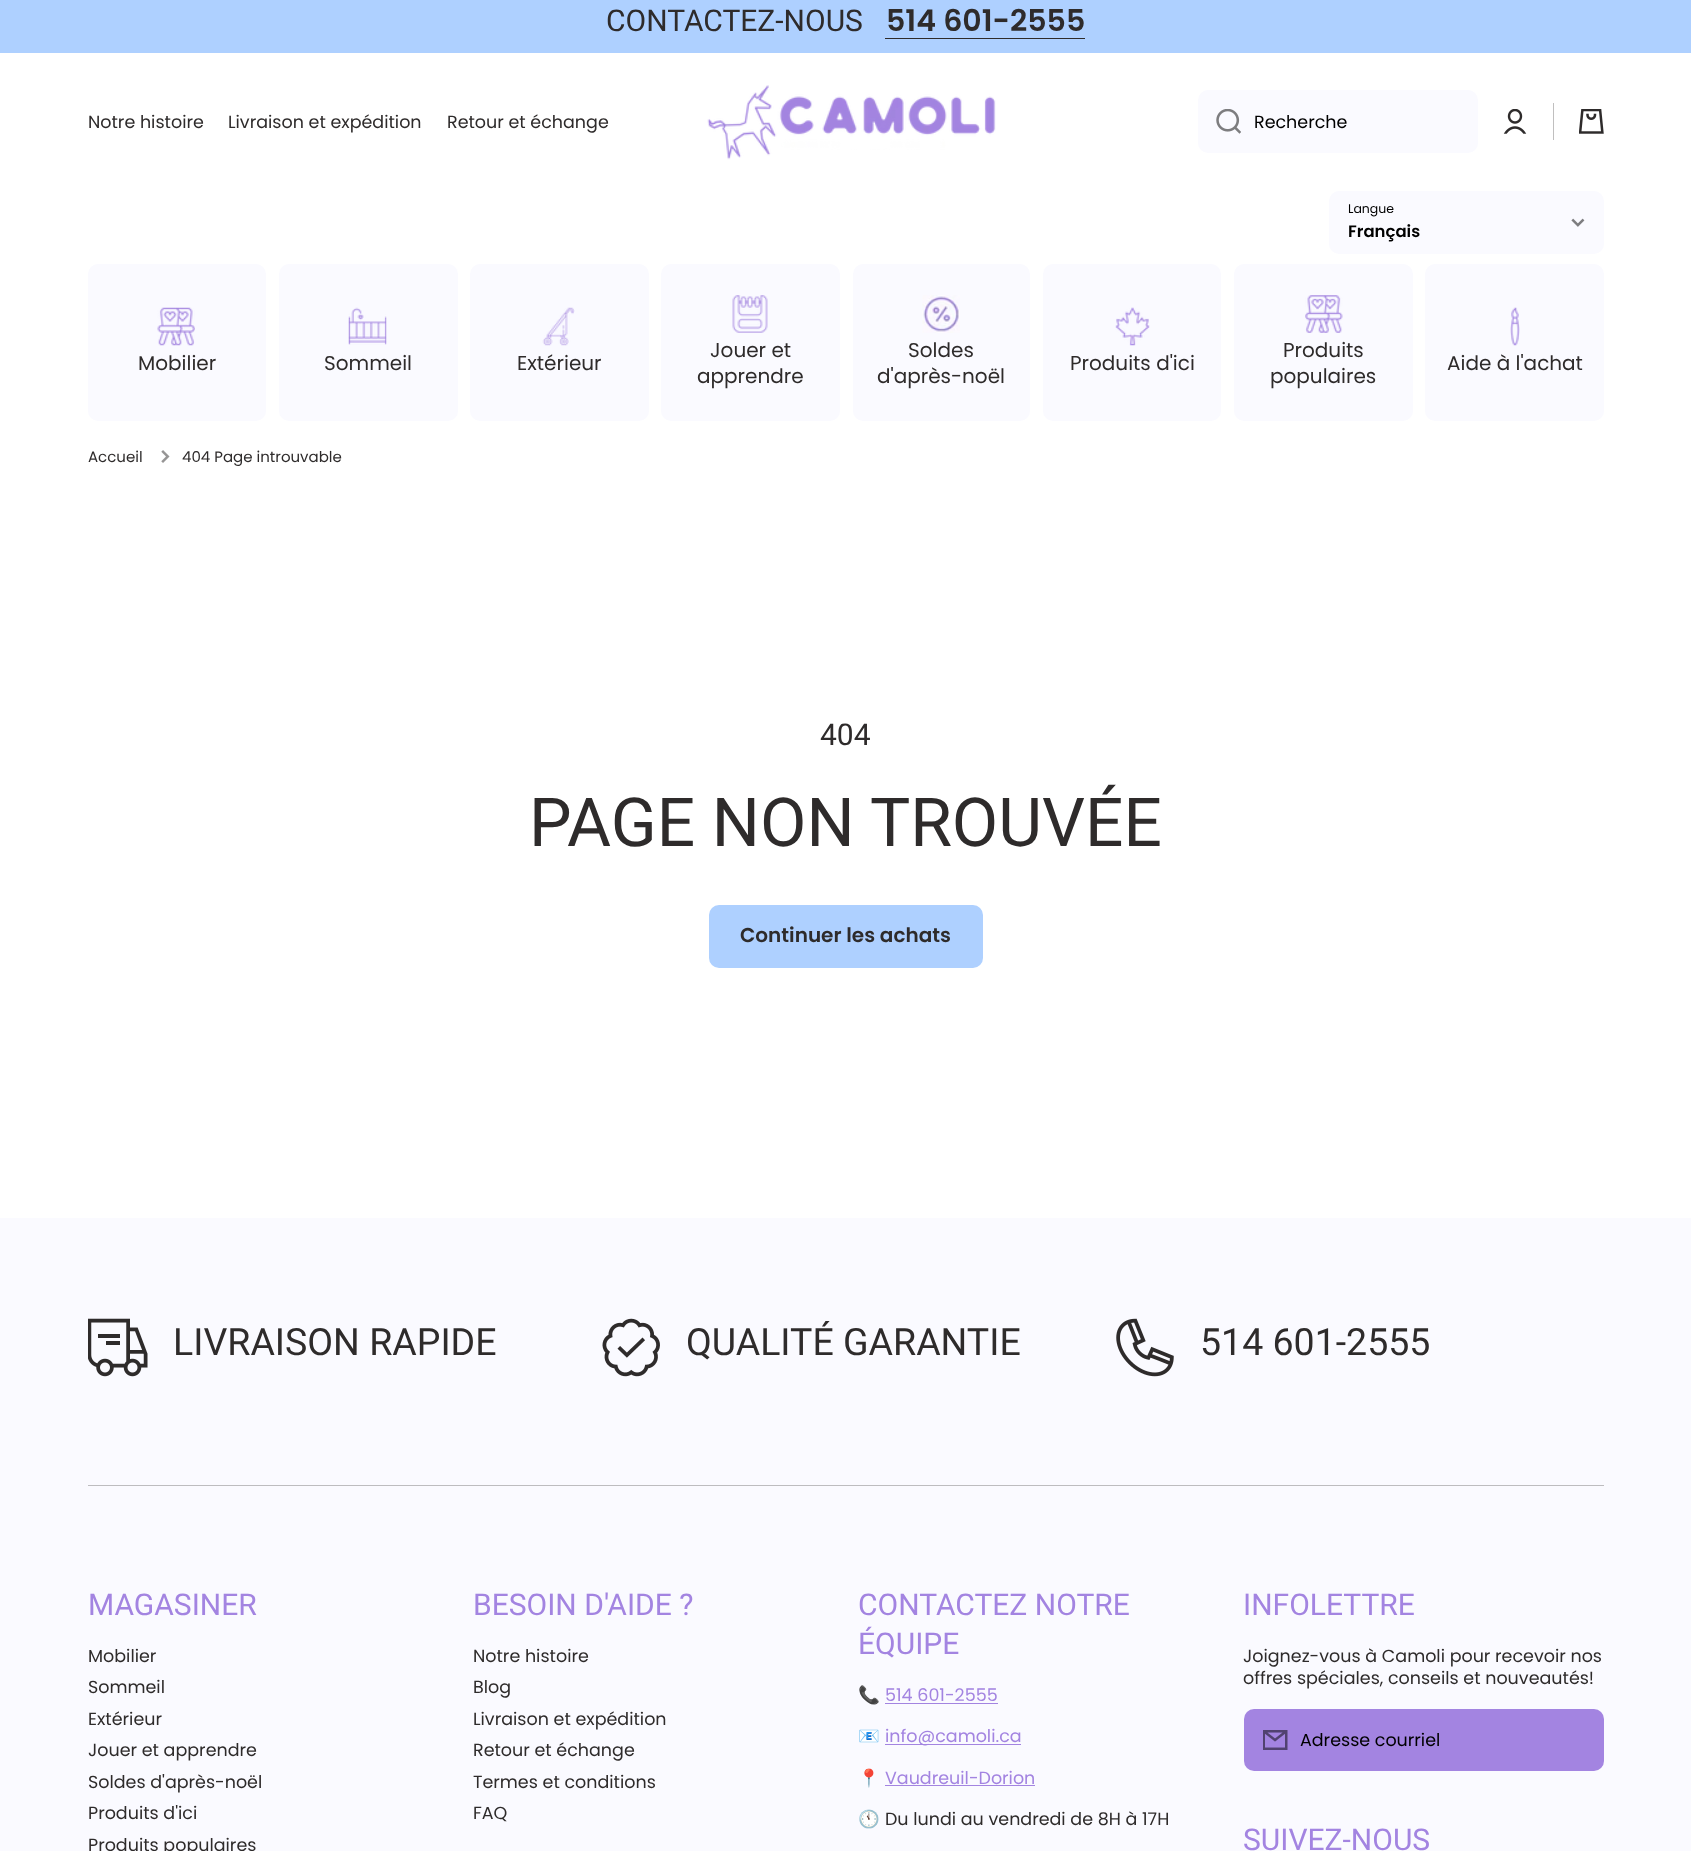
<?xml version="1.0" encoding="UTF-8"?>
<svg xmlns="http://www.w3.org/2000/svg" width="1691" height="1851">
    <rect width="100%" height="100%" fill="#FFFFFF"/>
    <rect x="0" y="0" width="1691" height="53" fill="#AED0FF"/>
    <text x="606" y="31" font-family="Roboto" font-size="30" fill="#2E2B2B">CONTACTEZ-NOUS</text>
    <text x="886" y="31" font-family="Poppins" font-size="30" font-weight="600" fill="#2E2B2B">514 601-2555</text>
    <rect x="885" y="38" width="200" height="1" fill="#2E2B2B"/>
    <text x="88" y="128" font-family="Poppins" font-size="17.5" fill="#2E2B2B">Notre histoire</text>
    <text x="228" y="128" font-family="Poppins" font-size="17.5" fill="#2E2B2B">Livraison et expédition</text>
    <text x="447" y="128" font-family="Poppins" font-size="17.5" fill="#2E2B2B">Retour et échange</text>
    <image x="707" y="85" width="289" height="75" href="img_01.png"/>
    <rect x="1198" y="90" width="280" height="63" rx="10" fill="#FAFAFF"/>
    <image x="1216" y="109" width="25" height="25" href="img_02.png"/>
    <text x="1254" y="128" font-family="Poppins" font-size="17.5" fill="#000000">Recherche</text>
    <image x="1503" y="109" width="24" height="25" href="img_03.png"/>
    <rect x="1553" y="103" width="1" height="37" fill="#C0BFBF"/>
    <image x="1579" y="109" width="25" height="25" href="img_04.png"/>
    <rect x="1329" y="191" width="275" height="63" rx="10" fill="#FAFAFF"/>
    <text x="1348" y="213" font-family="Poppins" font-size="12.5" fill="#000000">Langue</text>
    <text x="1348" y="237" font-family="Poppins" font-size="16.5" font-weight="600" fill="#000000">Français</text>
    <image x="1571" y="218" width="14" height="9" href="img_05.png"/>
    <rect x="88" y="264" width="178" height="157" rx="10" fill="#FAFAFF"/>
    <image x="157" y="307" width="38" height="39" href="img_06.png"/>
    <text x="138" y="370" font-family="Poppins" font-size="20" fill="#2E2B2B">Mobilier</text>
    <rect x="279" y="264" width="179" height="157" rx="10" fill="#FAFAFF"/>
    <image x="348" y="307" width="39" height="38" href="img_07.png"/>
    <text x="324" y="370" font-family="Poppins" font-size="20" fill="#2E2B2B">Sommeil</text>
    <rect x="470" y="264" width="179" height="157" rx="10" fill="#FAFAFF"/>
    <image x="542" y="307" width="33" height="39" href="img_08.png"/>
    <text x="517" y="370" font-family="Poppins" font-size="20" fill="#2E2B2B">Extérieur</text>
    <rect x="661" y="264" width="179" height="157" rx="10" fill="#FAFAFF"/>
    <image x="732" y="295" width="36" height="38" href="img_09.png"/>
    <text x="710" y="357" font-family="Poppins" font-size="20" fill="#2E2B2B">Jouer et</text>
    <text x="697" y="383" font-family="Poppins" font-size="20" fill="#2E2B2B">apprendre</text>
    <rect x="853" y="264" width="177" height="157" rx="10" fill="#FAFAFF"/>
    <image x="922" y="295" width="38" height="38" href="img_10.png"/>
    <text x="908" y="357" font-family="Poppins" font-size="20" fill="#2E2B2B">Soldes</text>
    <text x="877" y="383" font-family="Poppins" font-size="20" fill="#2E2B2B">d'après-noël</text>
    <rect x="1043" y="264" width="178" height="157" rx="10" fill="#FAFAFF"/>
    <image x="1115" y="307" width="35" height="39" href="img_11.png"/>
    <text x="1070" y="370" font-family="Poppins" font-size="20" fill="#2E2B2B">Produits d'ici</text>
    <rect x="1234" y="264" width="179" height="157" rx="10" fill="#FAFAFF"/>
    <image x="1305" y="295" width="38" height="38" href="img_12.png"/>
    <text x="1283" y="357" font-family="Poppins" font-size="20" fill="#2E2B2B">Produits</text>
    <text x="1270" y="383" font-family="Poppins" font-size="20" fill="#2E2B2B">populaires</text>
    <rect x="1425" y="264" width="179" height="157" rx="10" fill="#FAFAFF"/>
    <image x="1510" y="307" width="10" height="39" href="img_13.png"/>
    <text x="1447" y="370" font-family="Poppins" font-size="20" fill="#2E2B2B">Aide à l'achat</text>
    <text x="88" y="462" font-family="Poppins" font-size="15" fill="#2E2B2B">Accueil</text>
    <image x="161" y="450" width="9" height="13" href="img_14.png"/>
    <text x="182" y="462" font-family="Poppins" font-size="15" fill="#2E2B2B">404 Page introuvable</text>
    <text x="820" y="745" font-family="Roboto" font-size="30" fill="#2E2B2B">404</text>
    <text x="529" y="846" font-family="Roboto" font-size="67.5" fill="#2E2B2B">PAGE NON TROUVÉE</text>
    <rect x="709" y="905" width="274" height="63" rx="10" fill="#AED0FF"/>
    <text x="740" y="942" font-family="Poppins" font-size="20" font-weight="600" fill="#2E2B2B">Continuer les achats</text>
    <rect x="0" y="1218" width="1691" height="633" fill="#FAFAFF"/>
    <image x="88" y="1318" width="60" height="59" href="img_15.png"/>
    <text x="173" y="1355" font-family="Roboto" font-size="37.5" fill="#2E2B2B">LIVRAISON RAPIDE</text>
    <image x="602" y="1318" width="58" height="59" href="img_16.png"/>
    <text x="686" y="1355" font-family="Roboto" font-size="37.5" fill="#2E2B2B">QUALITÉ GARANTIE</text>
    <image x="1116" y="1318" width="58" height="59" href="img_17.png"/>
    <text x="1200" y="1355" font-family="Roboto" font-size="37.5" fill="#2E2B2B">514 601-2555</text>
    <rect x="88" y="1485" width="1516" height="1" fill="#BDBCBF"/>
    <text x="88" y="1615" font-family="Roboto" font-size="30" fill="#A384E1">MAGASINER</text>
    <text font-family="Poppins" font-size="17.5" fill="#2E2B2B">
        <tspan x="88" y="1662">Mobilier</tspan>
        <tspan x="88" y="1693">Sommeil</tspan>
        <tspan x="88" y="1725">Extérieur</tspan>
        <tspan x="88" y="1756">Jouer et apprendre</tspan>
        <tspan x="88" y="1788">Soldes d'après-noël</tspan>
        <tspan x="88" y="1819">Produits d'ici</tspan>
        <tspan x="88" y="1851">Produits populaires</tspan>
    </text>
    <text x="473" y="1615" font-family="Roboto" font-size="30" fill="#A384E1">BESOIN D'AIDE ?</text>
    <text font-family="Poppins" font-size="17.5" fill="#2E2B2B">
        <tspan x="473" y="1662">Notre histoire</tspan>
        <tspan x="473" y="1693">Blog</tspan>
        <tspan x="473" y="1725">Livraison et expédition</tspan>
        <tspan x="473" y="1756">Retour et échange</tspan>
        <tspan x="473" y="1788">Termes et conditions</tspan>
        <tspan x="473" y="1819">FAQ</tspan>
    </text>
    <text font-family="Roboto" font-size="30" fill="#A384E1">
        <tspan x="858" y="1615">CONTACTEZ NOTRE</tspan>
        <tspan x="858" y="1654">ÉQUIPE</tspan>
    </text>
    <text x="858" y="1701" font-family="Noto Color Emoji" font-size="17.5" fill="#2E2B2B">📞</text>
    <text x="885" y="1701" font-family="Poppins" font-size="17.5" fill="#A384E1">514 601-2555</text>
    <rect x="885" y="1703" width="113" height="1" fill="#A384E1"/>
    <text x="858" y="1742" font-family="Noto Color Emoji" font-size="17.5" fill="#2E2B2B">📧</text>
    <rect x="885" y="1744" width="136" height="1" fill="#A384E1"/>
    <text x="885" y="1742" font-family="Poppins" font-size="17.5" fill="#A384E1">info@camoli.ca</text>
    <text x="858" y="1784" font-family="Noto Color Emoji" font-size="17.5" fill="#2E2B2B">📍</text>
    <text x="885" y="1784" font-family="Poppins" font-size="17.5" fill="#A384E1">Vaudreuil-Dorion</text>
    <rect x="885" y="1785" width="150" height="1" fill="#A384E1"/>
    <text x="858" y="1825" font-family="Noto Color Emoji" font-size="17.5" fill="#2E2B2B">🕚</text>
    <text x="885" y="1825" font-family="Poppins" font-size="17.5" fill="#2E2B2B">Du lundi au vendredi de 8H à 17H</text>
    <text x="1243" y="1615" font-family="Roboto" font-size="30" fill="#A384E1">INFOLETTRE</text>
    <text font-family="Poppins" font-size="17.5" fill="#2E2B2B">
        <tspan x="1243" y="1662">Joignez-vous à Camoli pour recevoir nos</tspan>
        <tspan x="1243" y="1684">offres spéciales, conseils et nouveautés!</tspan>
    </text>
    <rect x="1244" y="1709" width="360" height="62" rx="10" fill="#A384E1"/>
    <image x="1263" y="1730" width="25" height="20" href="img_18.png"/>
    <text x="1300" y="1746" font-family="Poppins" font-size="17.5" fill="#000000">Adresse courriel</text>
    <text x="1243" y="1850" font-family="Roboto" font-size="30" fill="#A384E1">SUIVEZ-NOUS</text>
</svg>
